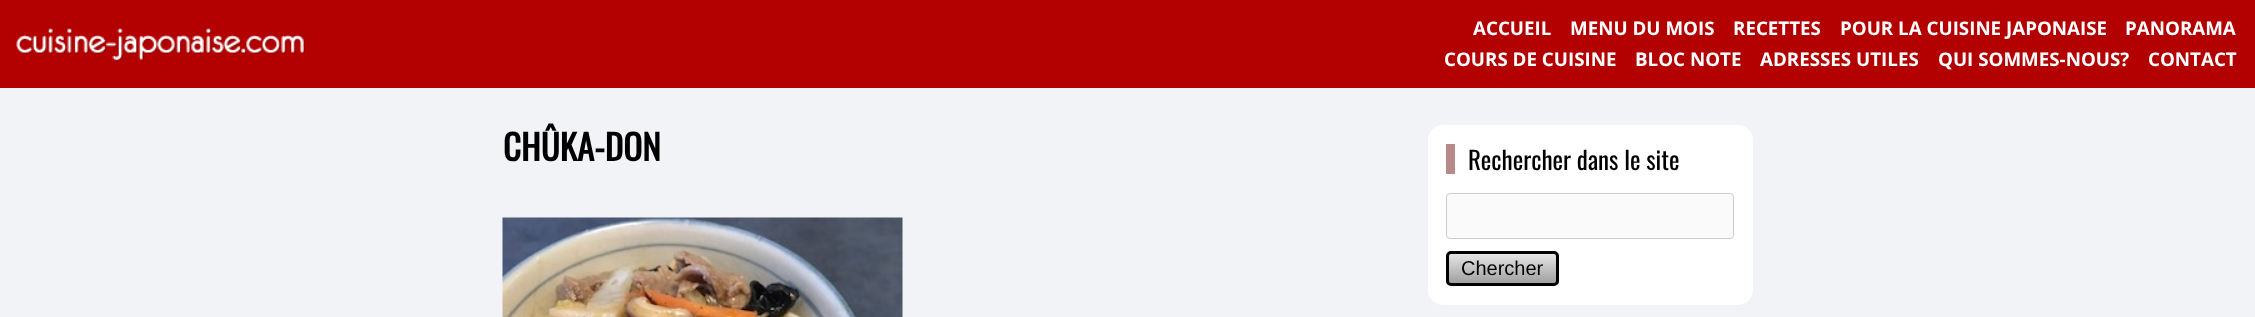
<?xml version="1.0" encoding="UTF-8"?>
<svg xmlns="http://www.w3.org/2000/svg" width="2255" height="317">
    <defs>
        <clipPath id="clip1"><rect x="1446" y="251" width="113" height="35" rx="5"/></clipPath>
        <linearGradient id="g1" gradientUnits="userSpaceOnUse" x1="1503" y1="254" x2="1503" y2="284"><stop offset="0" stop-color="#E5E5E5"/><stop offset="1" stop-color="#9E9E9E"/></linearGradient>
    </defs>
    <rect width="100%" height="100%" fill="#F2F3F6"/>
    <rect x="0" y="0" width="2255" height="88" fill="#B30101"/>
    <image x="16" y="28" width="289" height="34" href="img_01.png"/>
    <text x="1473" y="35" font-family="Open Sans" font-size="18.75" font-weight="700" fill="#FFFFFF">ACCUEIL</text>
    <text x="1570" y="35" font-family="Open Sans" font-size="18.75" font-weight="700" fill="#FFFFFF">MENU DU MOIS</text>
    <text x="1733" y="35" font-family="Open Sans" font-size="18.75" font-weight="700" fill="#FFFFFF">RECETTES</text>
    <text x="1840" y="35" font-family="Open Sans" font-size="18.75" font-weight="700" fill="#FFFFFF">POUR LA CUISINE JAPONAISE</text>
    <text x="2125" y="35" font-family="Open Sans" font-size="18.75" font-weight="700" fill="#FFFFFF">PANORAMA</text>
    <text x="1444" y="66" font-family="Open Sans" font-size="18.75" font-weight="700" fill="#FFFFFF">COURS DE CUISINE</text>
    <text x="1635" y="66" font-family="Open Sans" font-size="18.75" font-weight="700" fill="#FFFFFF">BLOC NOTE</text>
    <text x="1760" y="66" font-family="Open Sans" font-size="18.75" font-weight="700" fill="#FFFFFF">ADRESSES UTILES</text>
    <text x="1938" y="66" font-family="Open Sans" font-size="18.75" font-weight="700" fill="#FFFFFF">QUI SOMMES-NOUS?</text>
    <text x="2148" y="66" font-family="Open Sans" font-size="18.75" font-weight="700" fill="#FFFFFF">CONTACT</text>
    <text x="503" y="161" font-family="Oswald" font-size="35" font-weight="700" fill="#000000">CHÛKA-DON</text>
    <image x="502" y="217" width="401" height="100" href="img_02.png"/>
    <rect x="1428" y="125" width="325" height="180" rx="15" fill="#FFFFFF"/>
    <rect x="1446" y="144" width="9" height="30" fill="#B88989"/>
    <text x="1468" y="170" font-family="Oswald" font-size="25" fill="#000000">Rechercher dans le site</text>
    <rect x="1446.5" y="193.5" width="287" height="45" rx="3.5" fill="#FAFAFA" stroke="#CCCCCC"/>
    <g clip-path="url(#clip1)">
        <rect x="1446" y="254" width="113" height="30" fill="url(#g1)"/>
    </g>
    <rect x="1447.5" y="252.5" width="110" height="32" rx="3.5" fill="none" stroke="#000000" stroke-width="3"/>
    <text x="1461" y="275" font-family="Liberation Sans" font-size="20" fill="#000000">Chercher</text>
</svg>
